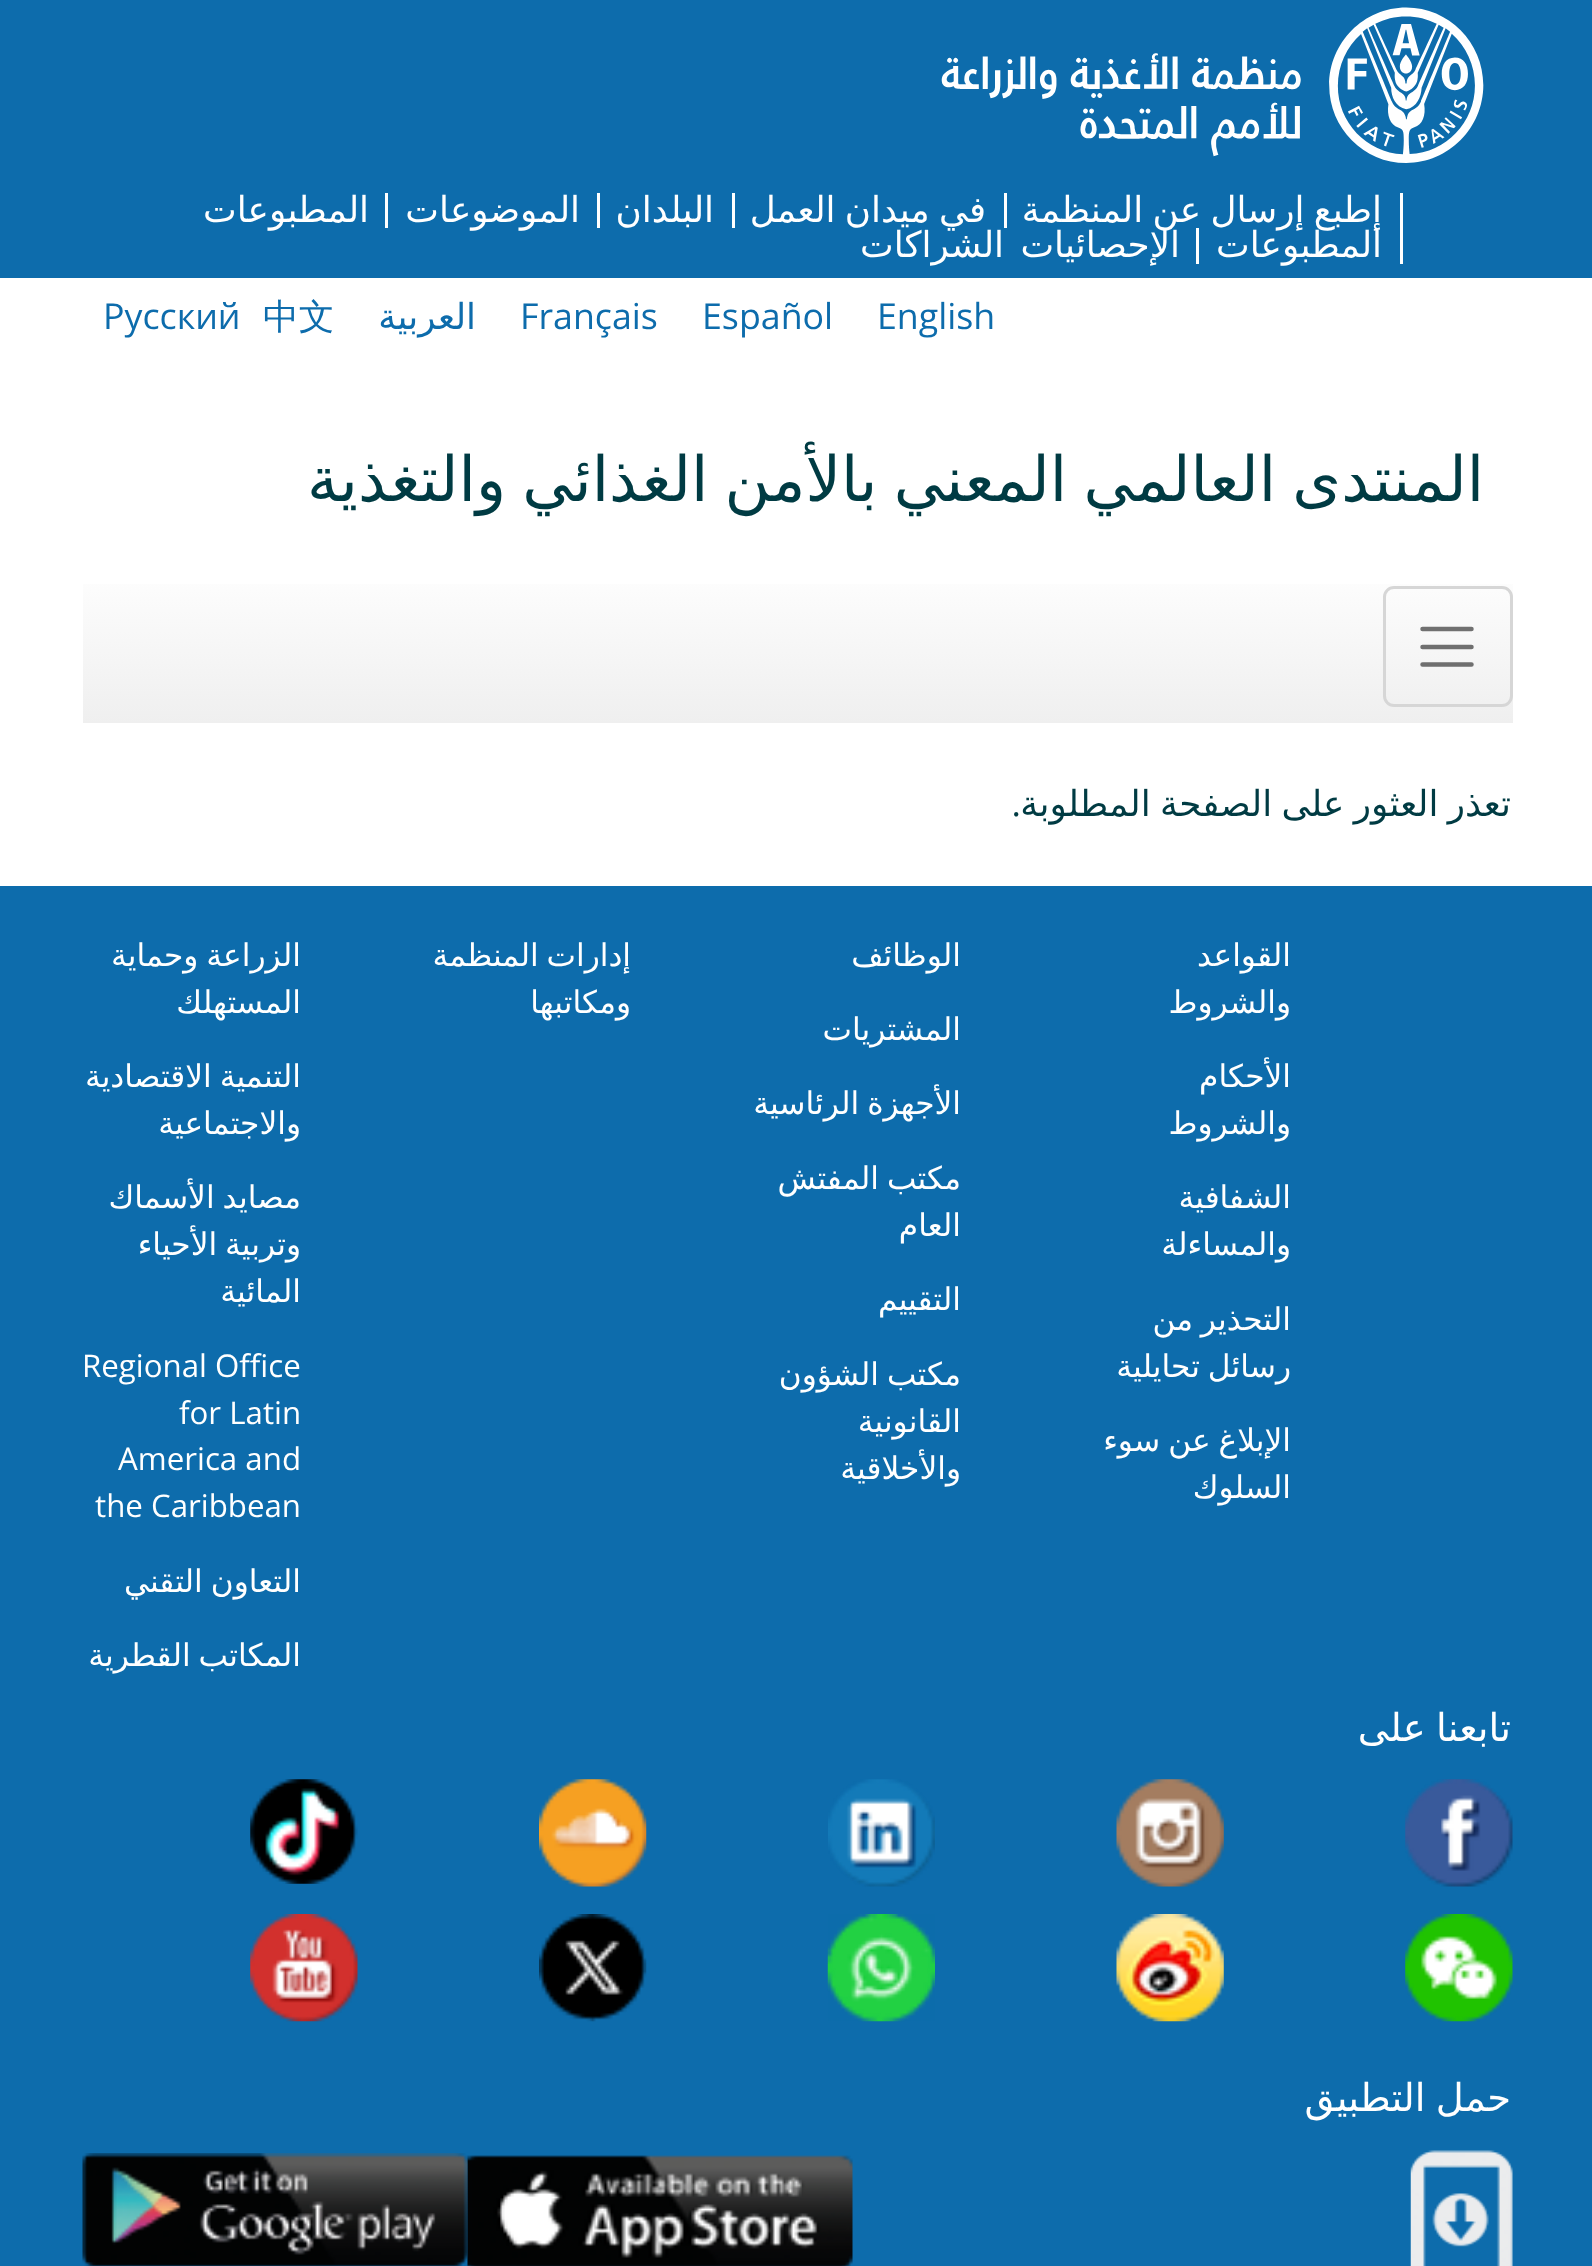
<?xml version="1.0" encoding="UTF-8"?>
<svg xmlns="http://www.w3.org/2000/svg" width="1592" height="2266">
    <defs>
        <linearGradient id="g1" gradientUnits="userSpaceOnUse" x1="798" y1="569" x2="798" y2="723"><stop offset="0" stop-color="#FEFEFE"/><stop offset="1" stop-color="#EFEFEF"/></linearGradient>
    </defs>
    <rect width="100%" height="100%" fill="#FFFFFF"/>
    <rect x="0" y="0" width="1592" height="278" fill="#0D6CAC"/>
    <image x="941" y="7" width="543" height="156" href="img_01.png"/>
    <rect x="1400" y="193" width="3" height="71" fill="#FFFFFF"/>
    <text x="1382" y="222" word-spacing="-2" font-family="DejaVu Sans" font-size="35.75" direction="rtl" fill="#FFFFFF">إطبع إرسال عن المنظمة</text>
    <rect x="1004" y="193" width="3" height="35" fill="#FFFFFF"/>
    <text x="986" y="222" word-spacing="-2" font-family="DejaVu Sans" font-size="35.75" direction="rtl" fill="#FFFFFF">في ميدان العمل</text>
    <rect x="732" y="193" width="3" height="35" fill="#FFFFFF"/>
    <text x="714" y="222" font-family="DejaVu Sans" font-size="35.75" direction="rtl" fill="#FFFFFF">البلدان</text>
    <rect x="597" y="193" width="3" height="35" fill="#FFFFFF"/>
    <text x="580" y="222" font-family="DejaVu Sans" font-size="35.75" direction="rtl" fill="#FFFFFF">الموضوعات</text>
    <rect x="385" y="193" width="3" height="35" fill="#FFFFFF"/>
    <text x="369" y="222" font-family="DejaVu Sans" font-size="35.75" direction="rtl" fill="#FFFFFF">المطبوعات</text>
    <text x="1382" y="257" font-family="DejaVu Sans" font-size="35.75" direction="rtl" fill="#FFFFFF">المطبوعات</text>
    <rect x="1196" y="228" width="3" height="36" fill="#FFFFFF"/>
    <text x="1180" y="257" font-family="DejaVu Sans" font-size="35.75" direction="rtl" fill="#FFFFFF">الإحصائيات</text>
    <text x="1004" y="257" font-family="DejaVu Sans" font-size="35.75" direction="rtl" fill="#FFFFFF">الشراكات</text>
    <text x="877" y="329" font-family="Open Sans" font-size="35.75" fill="#0D6CAC">English</text>
    <text x="702" y="329" font-family="Open Sans" font-size="35.75" fill="#0D6CAC">Español</text>
    <text x="520" y="329" font-family="Open Sans" font-size="35.75" fill="#0D6CAC">Français</text>
    <text x="476" y="329" font-family="DejaVu Sans" font-size="35.75" direction="rtl" fill="#0D6CAC">العربية</text>
    <text x="263" y="329" font-family="WenQuanYi Zen Hei" font-size="35.75" font-weight="500" fill="#0D6CAC">中文</text>
    <text x="103" y="329" font-family="Open Sans" font-size="35.75" fill="#0D6CAC">Русский</text>
    <text x="1484" y="501" word-spacing="-3.5" font-family="DejaVu Sans" font-size="62.4" direction="rtl" fill="#003B43">المنتدى العالمي المعني بالأمن الغذائي والتغذية</text>
    <rect x="83" y="584" width="1430" height="139" fill="url(#g1)"/>
    <rect x="1384.5" y="587.5" width="127" height="118" rx="9.5" fill="none" stroke="#D6D6D6" stroke-width="3"/>
    <path d="M 1422.5 629 H 1471.5 M 1422.5 647 H 1471.5 M 1422.5 664.5 H 1471.5" fill="none" stroke="#000000" stroke-opacity="0.55" stroke-width="4.5" stroke-linecap="round"/>
    <text x="1511" y="816" word-spacing="-2" font-family="DejaVu Sans" font-size="35.75" direction="rtl" fill="#003B43">تعذر العثور على الصفحة المطلوبة</text>
    <text x="1021" y="816" font-family="Open Sans" font-size="35.75" direction="rtl" fill="#003B43">.</text>
    <rect x="0" y="886" width="1592" height="1380" fill="#0D6CAC"/>
    <text font-family="DejaVu Sans" font-size="31.25" direction="rtl" fill="#FFFFFF">
        <tspan x="1291" y="966">القواعد</tspan>
        <tspan x="1291" y="1013">والشروط</tspan>
    </text>
    <text font-family="DejaVu Sans" font-size="31.25" direction="rtl" fill="#FFFFFF">
        <tspan x="1291" y="1087">الأحكام</tspan>
        <tspan x="1291" y="1134">والشروط</tspan>
    </text>
    <text font-family="DejaVu Sans" font-size="31.25" direction="rtl" fill="#FFFFFF">
        <tspan x="1291" y="1208">الشفافية</tspan>
        <tspan x="1291" y="1255">والمساءلة</tspan>
    </text>
    <text font-family="DejaVu Sans" font-size="31.25" direction="rtl" fill="#FFFFFF">
        <tspan x="1291" y="1330" word-spacing="-2">التحذير من</tspan>
        <tspan x="1291" y="1377" word-spacing="-2">رسائل تحايلية</tspan>
    </text>
    <text font-family="DejaVu Sans" font-size="31.25" direction="rtl" fill="#FFFFFF">
        <tspan x="1291" y="1451" word-spacing="-2">الإبلاغ عن سوء</tspan>
        <tspan x="1291" y="1498">السلوك</tspan>
    </text>
    <text x="961" y="966" font-family="DejaVu Sans" font-size="31.25" direction="rtl" fill="#FFFFFF">الوظائف</text>
    <text x="961" y="1040" font-family="DejaVu Sans" font-size="31.25" direction="rtl" fill="#FFFFFF">المشتريات</text>
    <text x="961" y="1114" word-spacing="-2" font-family="DejaVu Sans" font-size="31.25" direction="rtl" fill="#FFFFFF">الأجهزة الرئاسية</text>
    <text font-family="DejaVu Sans" font-size="31.25" direction="rtl" fill="#FFFFFF">
        <tspan x="961" y="1189" word-spacing="-2">مكتب المفتش</tspan>
        <tspan x="961" y="1236">العام</tspan>
    </text>
    <text x="961" y="1310" font-family="DejaVu Sans" font-size="31.25" direction="rtl" fill="#FFFFFF">التقييم</text>
    <text font-family="DejaVu Sans" font-size="31.25" direction="rtl" fill="#FFFFFF">
        <tspan x="961" y="1385" word-spacing="-2">مكتب الشؤون</tspan>
        <tspan x="961" y="1432">القانونية</tspan>
        <tspan x="961" y="1479">والأخلاقية</tspan>
    </text>
    <text font-family="DejaVu Sans" font-size="31.25" direction="rtl" fill="#FFFFFF">
        <tspan x="631" y="966" word-spacing="-2">إدارات المنظمة</tspan>
        <tspan x="631" y="1013">ومكاتبها</tspan>
    </text>
    <text font-family="DejaVu Sans" font-size="31.25" direction="rtl" fill="#FFFFFF">
        <tspan x="301" y="966" word-spacing="-2">الزراعة وحماية</tspan>
        <tspan x="301" y="1013">المستهلك</tspan>
    </text>
    <text font-family="DejaVu Sans" font-size="31.25" direction="rtl" fill="#FFFFFF">
        <tspan x="301" y="1087" word-spacing="-2">التنمية الاقتصادية</tspan>
        <tspan x="301" y="1134">والاجتماعية</tspan>
    </text>
    <text font-family="DejaVu Sans" font-size="31.25" direction="rtl" fill="#FFFFFF">
        <tspan x="301" y="1208" word-spacing="-2">مصايد الأسماك</tspan>
        <tspan x="301" y="1255" word-spacing="-2">وتربية الأحياء</tspan>
        <tspan x="301" y="1302">المائية</tspan>
    </text>
    <text x="82" y="1377" font-family="Open Sans" font-size="31.25" fill="#FFFFFF">Regional Office</text>
    <text x="179" y="1424" font-family="Open Sans" font-size="31.25" fill="#FFFFFF">for Latin</text>
    <text x="118" y="1470" font-family="Open Sans" font-size="31.25" fill="#FFFFFF">America and</text>
    <text x="95" y="1517" font-family="Open Sans" font-size="31.25" fill="#FFFFFF">the Caribbean</text>
    <text x="301" y="1592" word-spacing="-2" font-family="DejaVu Sans" font-size="31.25" direction="rtl" fill="#FFFFFF">التعاون التقني</text>
    <text x="301" y="1666" word-spacing="-2" font-family="DejaVu Sans" font-size="31.25" direction="rtl" fill="#FFFFFF">المكاتب القطرية</text>
    <text x="1511" y="1741" word-spacing="-2" font-family="DejaVu Sans" font-size="38.5" direction="rtl" fill="#FFFFFF">تابعنا على</text>
    <image x="1405" y="1779" width="108" height="108" href="img_02.png"/>
    <image x="1116" y="1779" width="108" height="108" href="img_03.png"/>
    <image x="828" y="1779" width="107" height="108" href="img_04.png"/>
    <image x="539" y="1779" width="108" height="108" href="img_05.png"/>
    <image x="250" y="1779" width="108" height="105" href="img_06.png"/>
    <image x="1405" y="1914" width="108" height="108" href="img_07.png"/>
    <image x="1116" y="1914" width="108" height="108" href="img_08.png"/>
    <image x="827" y="1914" width="108" height="108" href="img_09.png"/>
    <image x="539" y="1914" width="108" height="108" href="img_10.png"/>
    <image x="250" y="1914" width="108" height="108" href="img_11.png"/>
    <text x="1511" y="2111" word-spacing="-2" font-family="DejaVu Sans" font-size="38.5" direction="rtl" fill="#FFFFFF">حمل التطبيق</text>
    <image x="1410" y="2150" width="103" height="116" href="img_12.png"/>
    <image x="467" y="2155" width="386" height="111" href="img_13.png"/>
    <image x="82" y="2153" width="386" height="113" href="img_14.png"/>
</svg>
